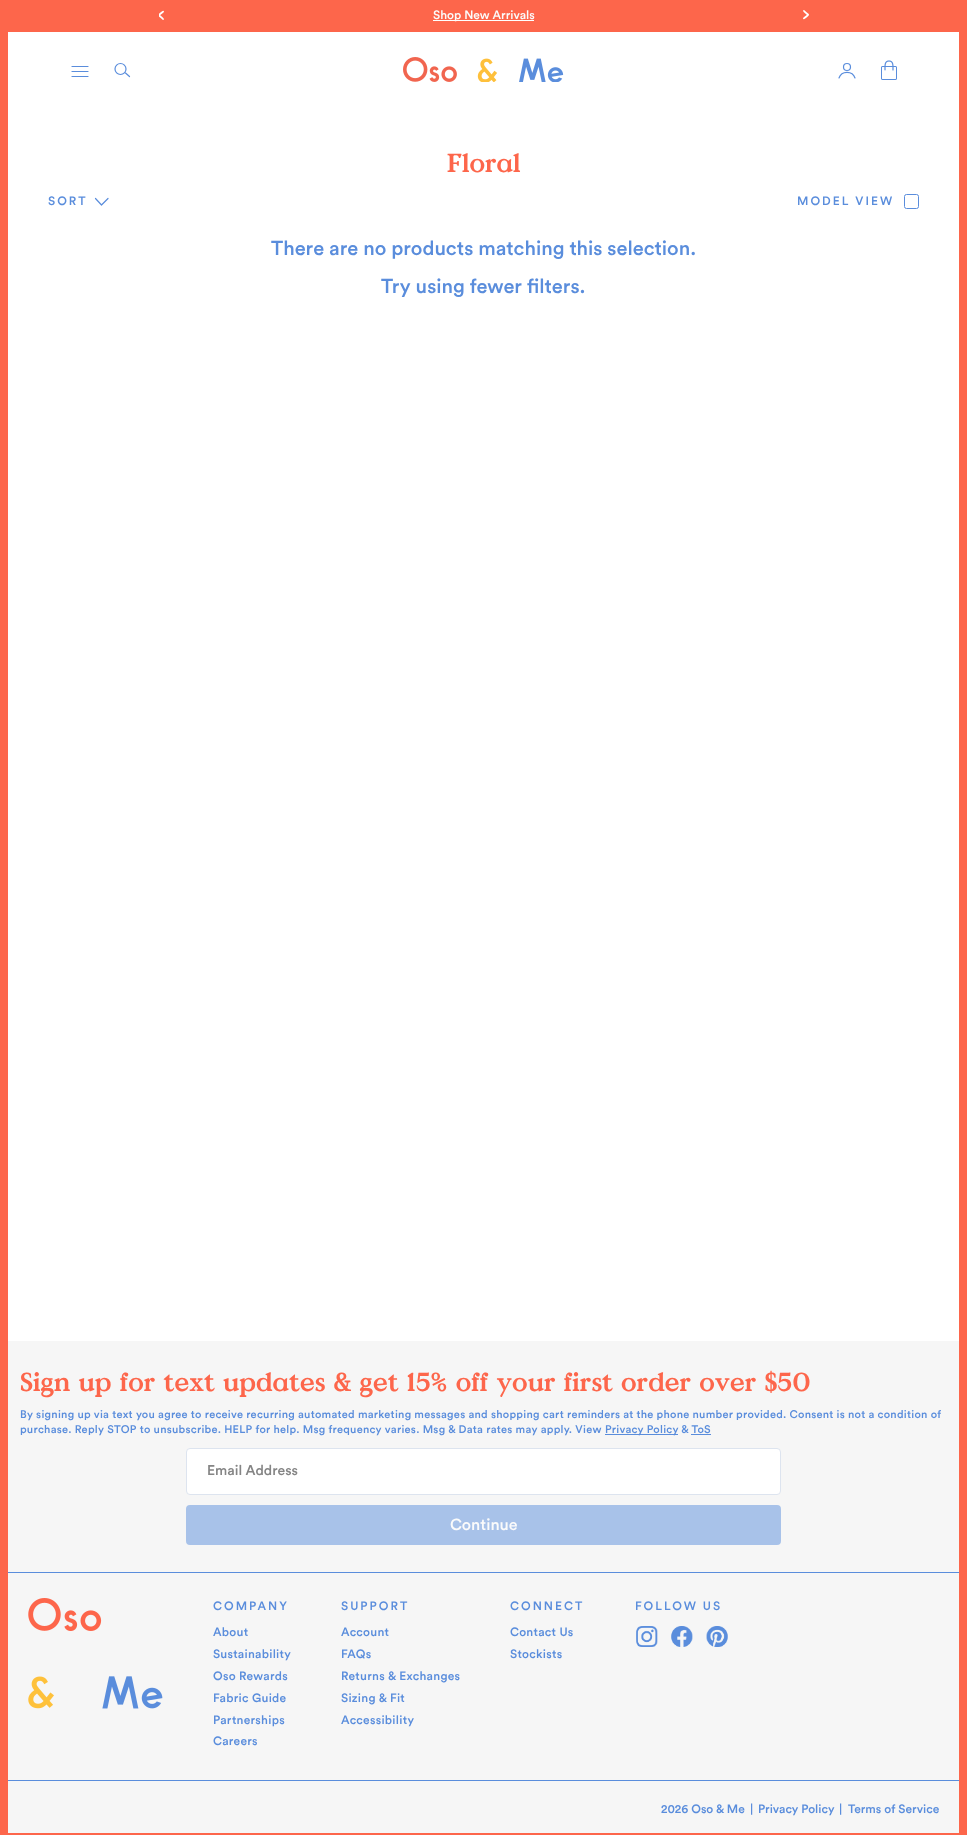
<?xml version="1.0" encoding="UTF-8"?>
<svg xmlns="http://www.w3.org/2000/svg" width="967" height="1835">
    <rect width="100%" height="100%" fill="#FFFFFF"/>
    <rect x="959" y="0" width="8" height="1835" fill="#FD664B"/>
    <rect x="0" y="1833" width="967" height="2" fill="#FD664B"/>
    <rect x="0" y="0" width="8" height="1835" fill="#FD664B"/>
    <rect x="8" y="0" width="951" height="32" fill="#FD664B"/>
    <image x="159" y="10" width="5" height="10" href="img_01.png"/>
    <rect x="433" y="20" width="101" height="1" fill="#FFFFFF"/>
    <text x="433" y="19" font-family="Circular" font-size="12" font-weight="500" fill="#FBFBFB">Shop New Arrivals</text>
    <image x="803" y="10" width="6" height="10" href="img_02.png"/>
    <path d="M 88 71.5 H 72 M 88 76.5 H 72 M 72 66.5 H 88" fill="none" stroke="#5A8DDC" stroke-width="1.2" stroke-linecap="round"/>
    <circle cx="120.5" cy="69" r="5.5" fill="none" stroke="#5A8DDC" stroke-width="1.2"/>
    <path d="M 129.5 76.5 L 125.5 73" fill="none" stroke="#5A8DDC" stroke-width="1.2" stroke-linecap="round"/>
    <image x="403" y="57" width="161" height="25" href="img_03.png"/>
    <circle cx="847" cy="67" r="3.5" fill="none" stroke="#5A8DDC" stroke-width="1.2"/>
    <path d="M 855 78 C 852.5 70.5 841.5 70.5 839 78" fill="none" stroke="#5A8DDC" stroke-width="1.2" stroke-linecap="round"/>
    <image x="881" y="60" width="16" height="20" href="img_04.png"/>
    <text x="447" y="172" font-family="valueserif" font-size="26" font-weight="500" fill="#FD664B">Floral</text>
    <text x="48" y="205" font-family="Circular" font-size="12" font-weight="500" letter-spacing="2" fill="#5A8DDC">SORT</text>
    <path d="M 101.5 205 L 95.5 198.5 M 101.5 205 L 108 198.5" fill="none" stroke="#5A8DDC" stroke-width="1.2" stroke-linecap="round"/>
    <text x="797" y="205" font-family="Circular" font-size="12" font-weight="500" letter-spacing="2" fill="#5A8DDC">MODEL VIEW</text>
    <rect x="904.5" y="194.5" width="14" height="14" rx="2" fill="none" stroke="#5A8DDC"/>
    <text x="271" y="255" font-family="Circular" font-size="20" font-weight="500" fill="#5A8DDC">There are no products matching this selection.</text>
    <text x="381" y="293" font-family="Circular" font-size="20" font-weight="500" fill="#5A8DDC">Try using fewer filters.</text>
    <rect x="8" y="1341" width="951" height="231" fill="#F6F6F6"/>
    <rect x="8" y="1572" width="951" height="1" fill="#5A8DDC"/>
    <text x="20" y="1391" font-family="valueserif" font-size="26" font-weight="500" fill="#FD664B">Sign up for text updates &amp; get 15% off your first order over $50</text>
    <text font-family="Circular" font-size="11" font-weight="500" letter-spacing="0.26" fill="#5A8DDC">
        <tspan x="20" y="1418">By signing up via text you agree to receive recurring automated marketing messages and shopping cart reminders at the phone number provided. Consent is not a condition of</tspan>
        <tspan x="20" y="1433">purchase. Reply STOP to unsubscribe. HELP for help. Msg frequency varies. Msg &amp; Data rates may apply. View</tspan>
    </text>
    <rect x="605" y="1434" width="73" height="1" fill="#5A8DDC"/>
    <text x="605" y="1433" font-family="Circular" font-size="11" font-weight="500" letter-spacing="0.26" fill="#5A8DDC">Privacy Policy</text>
    <text x="681" y="1433" font-family="Circular" font-size="11" font-weight="500" letter-spacing="0.26" fill="#5A8DDC">&amp; ToS</text>
    <rect x="691" y="1434" width="20" height="1" fill="#5A8DDC"/>
    <rect x="186.5" y="1448.5" width="594" height="46" rx="3.5" fill="#FFFFFF" stroke="#DDE4EF"/>
    <text x="207" y="1475" font-family="Circular" font-size="14" font-weight="500" fill="#858585">Email Address</text>
    <rect x="187" y="1506" width="593" height="38" rx="3" fill="#A8C2E9" stroke="#A8C2E9" stroke-width="2"/>
    <text x="450" y="1530" font-family="Circular" font-size="16" font-weight="500" fill="#FBFBFB">Continue</text>
    <rect x="8" y="1573" width="951" height="260" fill="#F6F6F6"/>
    <image x="28" y="1598" width="135" height="111" href="img_05.png"/>
    <text x="213" y="1610" font-family="Circular" font-size="12" font-weight="500" letter-spacing="2" fill="#5A8DDC">COMPANY</text>
    <text font-family="Circular" font-size="12" font-weight="500" letter-spacing="0.26" fill="#5A8DDC">
        <tspan x="213" y="1636">About</tspan>
        <tspan x="213" y="1658">Sustainability</tspan>
        <tspan x="213" y="1680">Oso Rewards</tspan>
        <tspan x="213" y="1702">Fabric Guide</tspan>
        <tspan x="213" y="1724">Partnerships</tspan>
        <tspan x="213" y="1745">Careers</tspan>
    </text>
    <text x="341" y="1610" font-family="Circular" font-size="12" font-weight="500" letter-spacing="2" fill="#5A8DDC">SUPPORT</text>
    <text font-family="Circular" font-size="12" font-weight="500" letter-spacing="0.26" fill="#5A8DDC">
        <tspan x="341" y="1636">Account</tspan>
        <tspan x="341" y="1658">FAQs</tspan>
        <tspan x="341" y="1680">Returns &amp; Exchanges</tspan>
        <tspan x="341" y="1702">Sizing &amp; Fit</tspan>
        <tspan x="341" y="1724">Accessibility</tspan>
    </text>
    <text x="510" y="1610" font-family="Circular" font-size="12" font-weight="500" letter-spacing="2" fill="#5A8DDC">CONNECT</text>
    <text font-family="Circular" font-size="12" font-weight="500" letter-spacing="0.26" fill="#5A8DDC">
        <tspan x="510" y="1636">Contact Us</tspan>
        <tspan x="510" y="1658">Stockists</tspan>
    </text>
    <text x="635" y="1610" font-family="Circular" font-size="12" font-weight="500" letter-spacing="2" fill="#5A8DDC">FOLLOW US</text>
    <image x="636" y="1626" width="22" height="21" href="img_06.png"/>
    <image x="671" y="1626" width="22" height="21" href="img_07.png"/>
    <image x="706" y="1626" width="22" height="21" href="img_08.png"/>
    <rect x="8" y="1780" width="951" height="1" fill="#5A8DDC"/>
    <text x="661" y="1813" font-family="Circular" font-size="12" font-weight="500" fill="#5A8DDC">2026 Oso &amp; Me</text>
    <text x="750" y="1813" font-family="Circular" font-size="12" font-weight="500" fill="#5A8DDC">|</text>
    <text x="758" y="1813" font-family="Circular" font-size="12" font-weight="500" fill="#5A8DDC">Privacy Policy</text>
    <text x="839" y="1813" font-family="Circular" font-size="12" font-weight="500" fill="#5A8DDC">|</text>
    <text x="848" y="1813" font-family="Circular" font-size="12" font-weight="500" fill="#5A8DDC">Terms of Service</text>
</svg>
